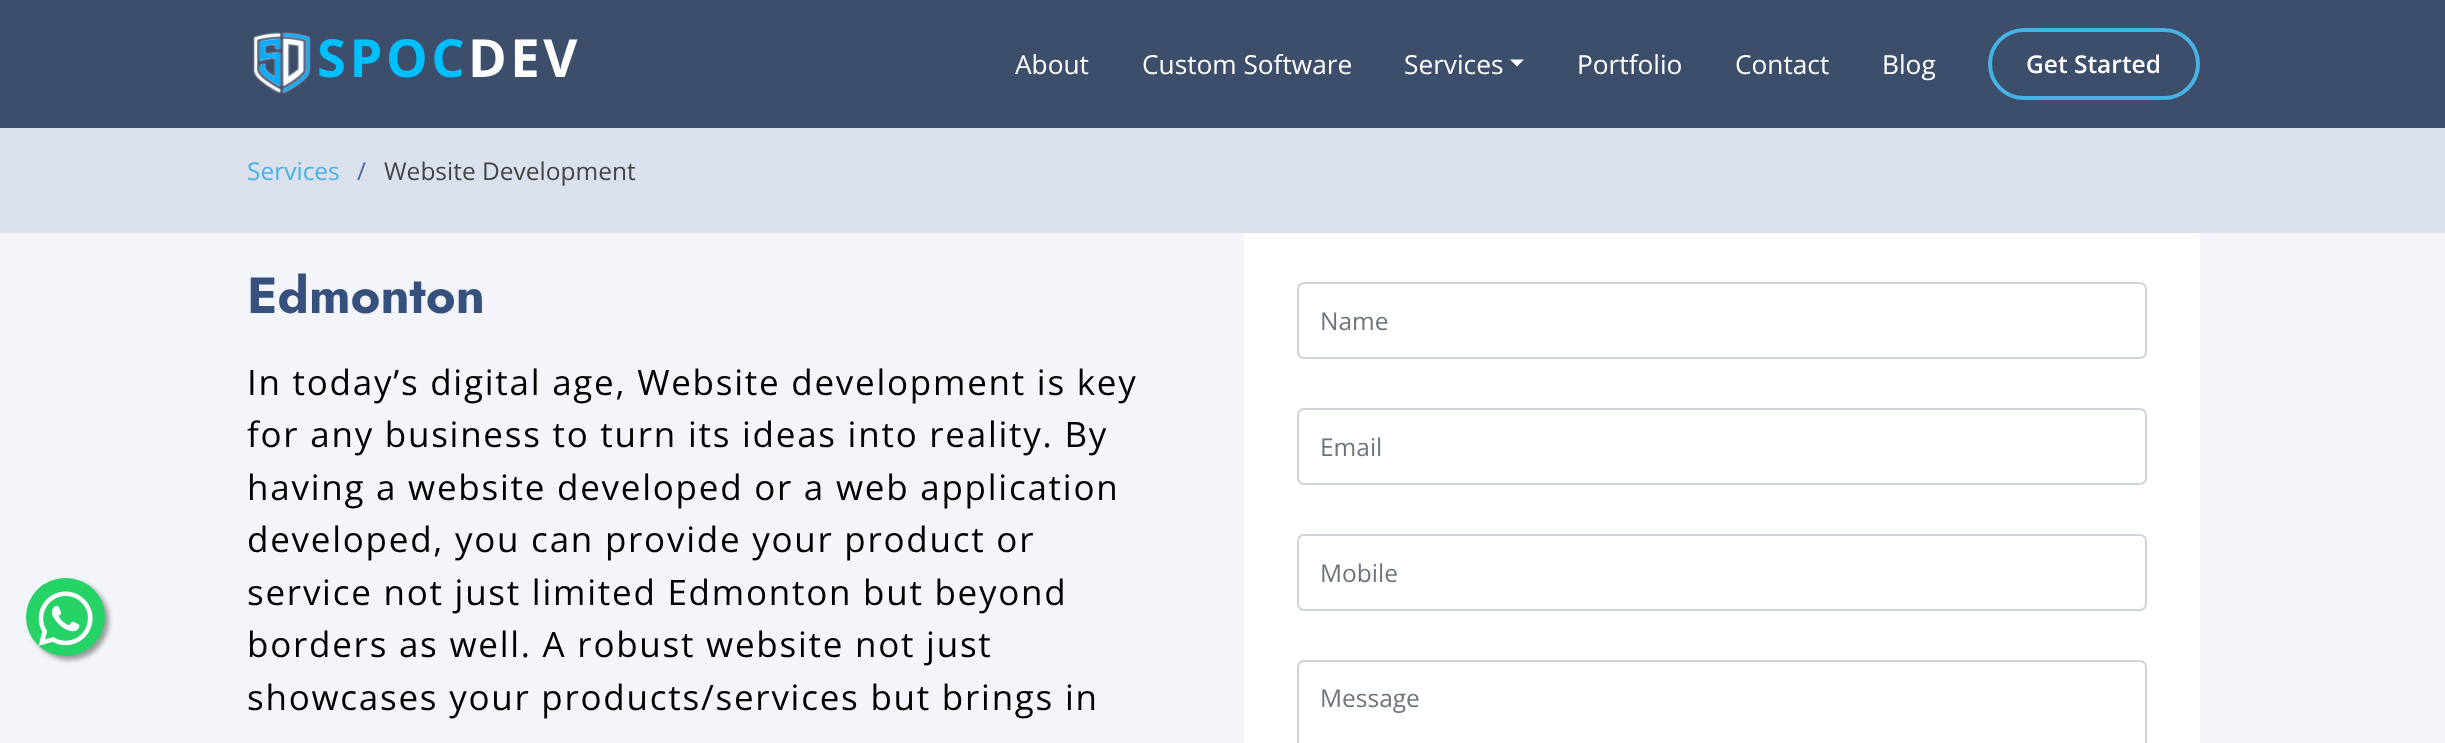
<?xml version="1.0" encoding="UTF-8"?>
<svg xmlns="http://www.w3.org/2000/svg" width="2445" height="743">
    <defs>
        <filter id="blur1" x="-50%" y="-200%" width="200%" height="500%"><feGaussianBlur stdDeviation="2.5"/></filter>
    </defs>
    <rect width="100%" height="100%" fill="#3D4E6B"/>
    <image x="252" y="32" width="59" height="62" href="img_01.png"/>
    <text x="317" y="77" font-family="Open Sans" font-size="52.5" font-weight="700" letter-spacing="3.5" fill="#00BFFF">SPOC</text>
    <text x="468" y="77" font-family="Open Sans" font-size="52.5" font-weight="700" letter-spacing="3.5" fill="#FFFFFF">DEV</text>
    <text x="1015" y="74" font-family="Open Sans" font-size="26.25" fill="#FFFFFF">About</text>
    <text x="1142" y="74" font-family="Open Sans" font-size="26.25" fill="#FFFFFF">Custom Software</text>
    <text x="1404" y="74" font-family="Open Sans" font-size="26.25" fill="#FFFFFF">Services</text>
    <path d="M 1510 59.5 H 1524 L 1517 66.5 Z" fill="#FFFFFF"/>
    <text x="1577" y="74" font-family="Open Sans" font-size="26.25" fill="#FFFFFF">Portfolio</text>
    <text x="1735" y="74" font-family="Open Sans" font-size="26.25" fill="#FFFFFF">Contact</text>
    <text x="1882" y="74" font-family="Open Sans" font-size="26.25" fill="#FFFFFF">Blog</text>
    <rect x="1990" y="30" width="208" height="68" rx="34" fill="none" stroke="#47B2E4" stroke-width="4"/>
    <text x="2026" y="73" font-family="Open Sans" font-size="24.5" font-weight="600" fill="#FFFFFF">Get Started</text>
    <rect x="0" y="233" width="2445" height="510" fill="#F3F5FA"/>
    <rect x="30" y="581" width="79" height="79" rx="39.5" fill="#999999" filter="url(#blur1)"/>
    <rect x="26" y="578" width="79" height="78" rx="39" fill="#25D366"/>
    <image x="38" y="591" width="55" height="55" href="img_02.png"/>
    <rect x="0" y="128" width="2445" height="105" fill="#DBE0ED"/>
    <rect x="0" y="126" width="2445" height="2" fill="#3A4B69"/>
    <text x="247" y="180" font-family="Open Sans" font-size="24.5" fill="#47B2E4">Services</text>
    <text x="357" y="180" font-family="Open Sans" font-size="24.5" fill="#4668A2">/</text>
    <text x="384" y="180" font-family="Open Sans" font-size="24.5" fill="#444444">Website Development</text>
    <text x="247" y="313" font-family="Jost" font-size="50.75" font-weight="700" fill="#37517E">Edmonton</text>
    <text font-family="Open Sans" font-size="35" letter-spacing="1.75" fill="#000000">
        <tspan x="247" y="395">In today’s digital age, Website development is key</tspan>
        <tspan x="247" y="447">for any business to turn its ideas into reality. By</tspan>
        <tspan x="247" y="500">having a website developed or a web application</tspan>
        <tspan x="247" y="552">developed, you can provide your product or</tspan>
        <tspan x="247" y="605">service not just limited Edmonton but beyond</tspan>
        <tspan x="247" y="657">borders as well. A robust website not just</tspan>
        <tspan x="247" y="710">showcases your products/services but brings in</tspan>
    </text>
    <rect x="1244" y="233" width="956" height="510" fill="#FFFFFF"/>
    <rect x="1298" y="283" width="848" height="75" rx="6" fill="none" stroke="#CED4DA" stroke-width="2"/>
    <text x="1320" y="330" font-family="Open Sans" font-size="24.5" fill="#6C757D">Name</text>
    <rect x="1298" y="409" width="848" height="75" rx="6" fill="none" stroke="#CED4DA" stroke-width="2"/>
    <text x="1320" y="456" font-family="Open Sans" font-size="24.5" fill="#6C757D">Email</text>
    <rect x="1298" y="535" width="848" height="75" rx="6" fill="none" stroke="#CED4DA" stroke-width="2"/>
    <text x="1320" y="582" font-family="Open Sans" font-size="24.5" fill="#6C757D">Mobile</text>
    <rect x="1298" y="661" width="848" height="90" rx="6" fill="none" stroke="#CED4DA" stroke-width="2"/>
    <text x="1320" y="707" font-family="Open Sans" font-size="24.5" fill="#6C757D">Message</text>
</svg>
